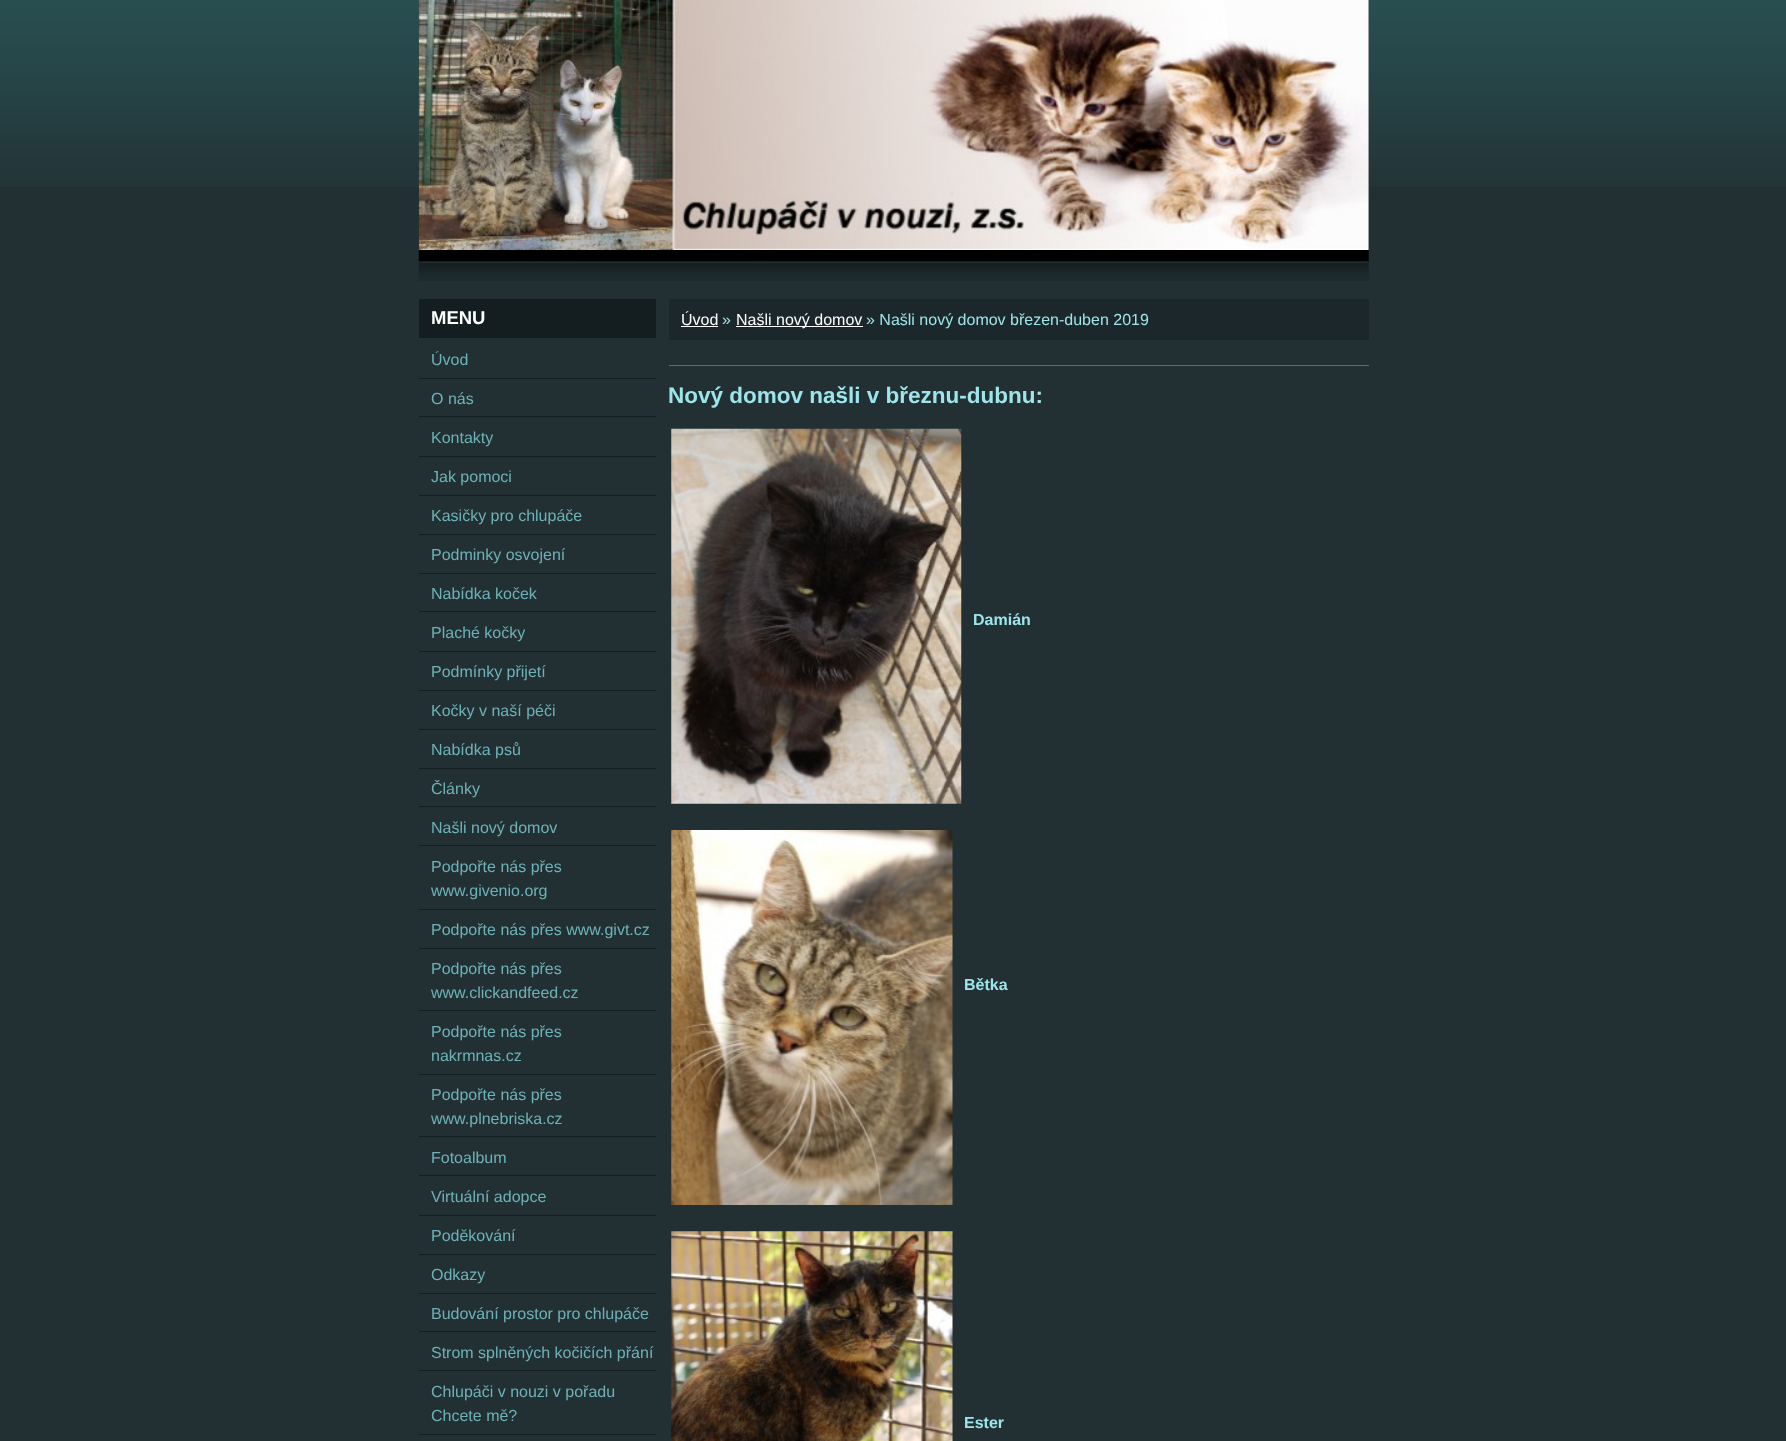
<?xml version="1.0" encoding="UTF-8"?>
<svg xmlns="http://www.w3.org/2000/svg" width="1786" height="1441">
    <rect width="100%" height="100%" fill="#223034"/>
    <image x="0" y="0" width="1786" height="187" href="img_01.png"/>
    <image x="418" y="250" width="951" height="31" href="img_02.png"/>
    <rect x="1368" y="0" width="1" height="187" fill="#223034"/>
    <image x="418" y="0" width="951" height="250" href="img_03.png"/>
    <rect x="419" y="299" width="237" height="39" fill="#141E21"/>
    <text x="431" y="324" font-family="Liberation Sans" font-size="18.5" font-weight="700" fill="#FFFFFF">MENU</text>
    <rect x="419" y="378" width="237" height="1" fill="#141E21"/>
    <text x="431" y="365" font-family="Liberation Sans" font-size="16" fill="#6DB2B8">Úvod</text>
    <rect x="419" y="416" width="237" height="1" fill="#141E21"/>
    <text x="431" y="404" font-family="Liberation Sans" font-size="16" fill="#6DB2B8">O nás</text>
    <rect x="419" y="456" width="237" height="1" fill="#141E21"/>
    <text x="431" y="443" font-family="Liberation Sans" font-size="16" fill="#6DB2B8">Kontakty</text>
    <rect x="419" y="495" width="237" height="1" fill="#141E21"/>
    <text x="431" y="482" font-family="Liberation Sans" font-size="16" fill="#6DB2B8">Jak pomoci</text>
    <rect x="419" y="534" width="237" height="1" fill="#141E21"/>
    <text x="431" y="521" font-family="Liberation Sans" font-size="16" fill="#6DB2B8">Kasičky pro chlupáče</text>
    <rect x="419" y="573" width="237" height="1" fill="#141E21"/>
    <text x="431" y="560" font-family="Liberation Sans" font-size="16" fill="#6DB2B8">Podminky osvojení</text>
    <rect x="419" y="611" width="237" height="1" fill="#141E21"/>
    <text x="431" y="599" font-family="Liberation Sans" font-size="16" fill="#6DB2B8">Nabídka koček</text>
    <rect x="419" y="651" width="237" height="1" fill="#141E21"/>
    <text x="431" y="638" font-family="Liberation Sans" font-size="16" fill="#6DB2B8">Plaché kočky</text>
    <rect x="419" y="690" width="237" height="1" fill="#141E21"/>
    <text x="431" y="677" font-family="Liberation Sans" font-size="16" fill="#6DB2B8">Podmínky přijetí</text>
    <rect x="419" y="729" width="237" height="1" fill="#141E21"/>
    <text x="431" y="716" font-family="Liberation Sans" font-size="16" fill="#6DB2B8">Kočky v naší péči</text>
    <rect x="419" y="768" width="237" height="1" fill="#141E21"/>
    <text x="431" y="755" font-family="Liberation Sans" font-size="16" fill="#6DB2B8">Nabídka psů</text>
    <rect x="419" y="806" width="237" height="1" fill="#141E21"/>
    <text x="431" y="794" font-family="Liberation Sans" font-size="16" fill="#6DB2B8">Články</text>
    <rect x="419" y="845" width="237" height="1" fill="#141E21"/>
    <text x="431" y="833" font-family="Liberation Sans" font-size="16" fill="#6DB2B8">Našli nový domov</text>
    <rect x="419" y="909" width="237" height="1" fill="#141E21"/>
    <text font-family="Liberation Sans" font-size="16" fill="#6DB2B8">
        <tspan x="431" y="872">Podpořte nás přes</tspan>
        <tspan x="431" y="896">www.givenio.org</tspan>
    </text>
    <rect x="419" y="948" width="237" height="1" fill="#141E21"/>
    <text x="431" y="935" font-family="Liberation Sans" font-size="16" fill="#6DB2B8">Podpořte nás přes www.givt.cz</text>
    <rect x="419" y="1010" width="237" height="1" fill="#141E21"/>
    <text font-family="Liberation Sans" font-size="16" fill="#6DB2B8">
        <tspan x="431" y="974">Podpořte nás přes</tspan>
        <tspan x="431" y="998">www.clickandfeed.cz</tspan>
    </text>
    <rect x="419" y="1074" width="237" height="1" fill="#141E21"/>
    <text font-family="Liberation Sans" font-size="16" fill="#6DB2B8">
        <tspan x="431" y="1037">Podpořte nás přes</tspan>
        <tspan x="431" y="1061">nakrmnas.cz</tspan>
    </text>
    <rect x="419" y="1136" width="237" height="1" fill="#141E21"/>
    <text font-family="Liberation Sans" font-size="16" fill="#6DB2B8">
        <tspan x="431" y="1100">Podpořte nás přes</tspan>
        <tspan x="431" y="1124">www.plnebriska.cz</tspan>
    </text>
    <rect x="419" y="1175" width="237" height="1" fill="#141E21"/>
    <text x="431" y="1163" font-family="Liberation Sans" font-size="16" fill="#6DB2B8">Fotoalbum</text>
    <rect x="419" y="1215" width="237" height="1" fill="#141E21"/>
    <text x="431" y="1202" font-family="Liberation Sans" font-size="16" fill="#6DB2B8">Virtuální adopce</text>
    <rect x="419" y="1254" width="237" height="1" fill="#141E21"/>
    <text x="431" y="1241" font-family="Liberation Sans" font-size="16" fill="#6DB2B8">Poděkování</text>
    <rect x="419" y="1293" width="237" height="1" fill="#141E21"/>
    <text x="431" y="1280" font-family="Liberation Sans" font-size="16" fill="#6DB2B8">Odkazy</text>
    <rect x="419" y="1331" width="237" height="1" fill="#141E21"/>
    <text x="431" y="1319" font-family="Liberation Sans" font-size="16" fill="#6DB2B8">Budování prostor pro chlupáče</text>
    <rect x="419" y="1370" width="237" height="1" fill="#141E21"/>
    <text x="431" y="1358" font-family="Liberation Sans" font-size="16" fill="#6DB2B8">Strom splněných kočičích přání</text>
    <rect x="419" y="1434" width="237" height="1" fill="#141E21"/>
    <text font-family="Liberation Sans" font-size="16" fill="#6DB2B8">
        <tspan x="431" y="1397">Chlupáči v nouzi v pořadu</tspan>
        <tspan x="431" y="1421">Chcete mě?</tspan>
    </text>
    <rect x="669" y="299" width="700" height="41" fill="#1B272A"/>
    <text x="681" y="325" font-family="Liberation Sans" font-size="16" fill="#FFFFFF">Úvod</text>
    <rect x="681" y="326" width="37" height="1" fill="#FFFFFF"/>
    <text x="722" y="325" font-family="Liberation Sans" font-size="16" fill="#9EE5EB">»</text>
    <rect x="736" y="326" width="127" height="1" fill="#FFFFFF"/>
    <text x="736" y="325" font-family="Liberation Sans" font-size="16" fill="#FFFFFF">Našli nový domov</text>
    <text x="866" y="325" font-family="Liberation Sans" font-size="16" fill="#9EE5EB">» Našli nový domov březen-duben 2019</text>
    <rect x="669" y="365" width="700" height="1" fill="#397B81"/>
    <text x="668" y="403" font-family="Liberation Sans" font-size="22.5" font-weight="700" fill="#9EE5EB">Nový domov našli v březnu-dubnu:</text>
    <image x="671" y="428" width="291" height="376" href="img_04.png"/>
    <text x="973" y="625" font-family="Liberation Sans" font-size="16" font-weight="700" fill="#9EE5EB">Damián</text>
    <image x="671" y="830" width="282" height="375" href="img_05.png"/>
    <text x="964" y="990" font-family="Liberation Sans" font-size="16" font-weight="700" fill="#9EE5EB">Bětka</text>
    <image x="671" y="1231" width="282" height="210" href="img_06.png"/>
    <text x="964" y="1428" font-family="Liberation Sans" font-size="16" font-weight="700" fill="#9EE5EB">Ester</text>
</svg>
